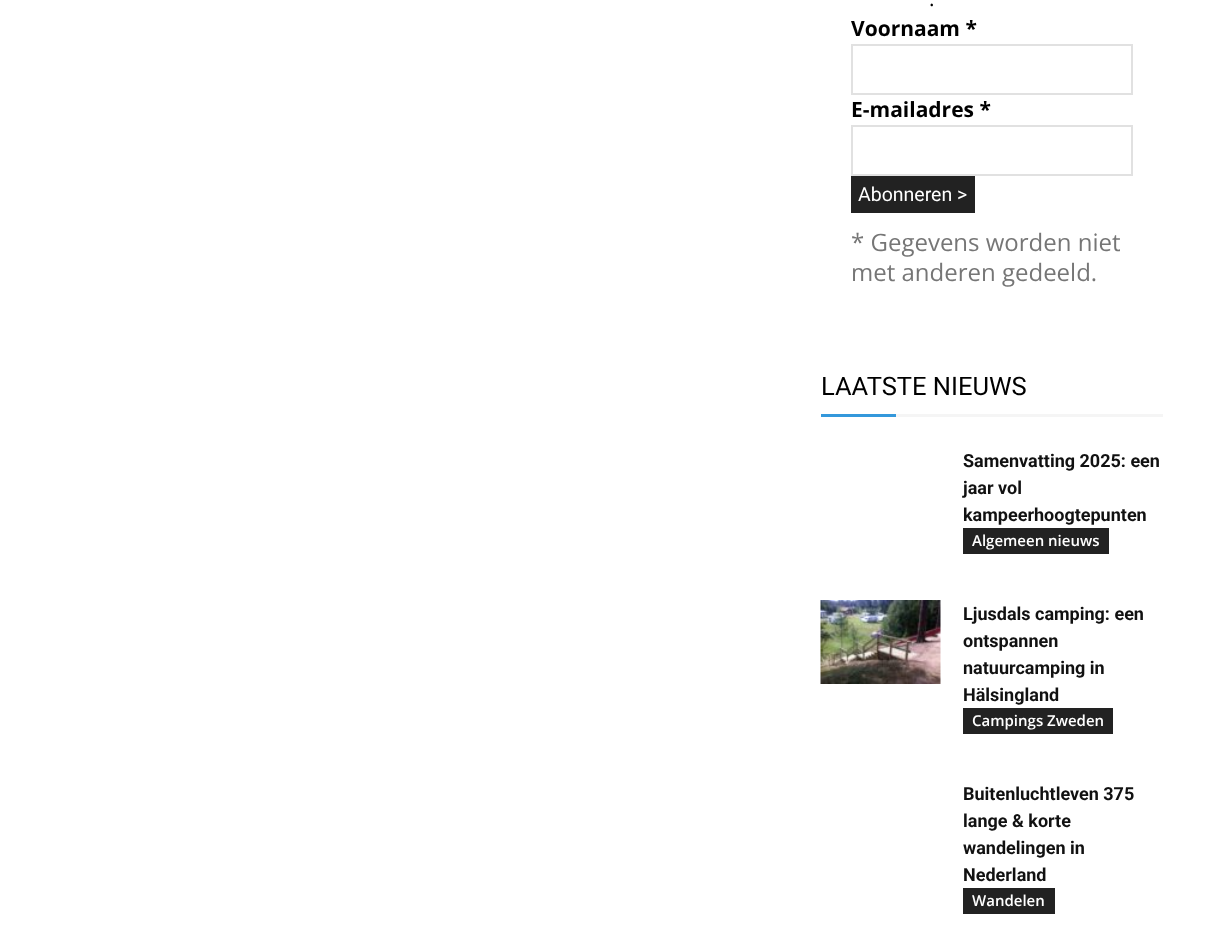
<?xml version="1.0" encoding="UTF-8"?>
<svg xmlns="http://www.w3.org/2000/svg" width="1215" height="944">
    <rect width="100%" height="100%" fill="#FFFFFF"/>
    <text x="929" y="6" font-family="Open Sans" font-size="21" fill="#000000">.</text>
    <text x="851" y="36" font-family="Open Sans" font-size="21" font-weight="700" fill="#000000">Voornaam *</text>
    <rect x="852" y="45" width="280" height="49" fill="none" stroke="#E1E1E1" stroke-width="2"/>
    <text x="851" y="117" font-family="Open Sans" font-size="21" font-weight="700" fill="#000000">E-mailadres *</text>
    <rect x="852" y="126" width="280" height="49" fill="none" stroke="#E1E1E1" stroke-width="2"/>
    <rect x="851" y="176" width="124" height="37" fill="#222222"/>
    <text x="858" y="201" font-family="Roboto" font-size="19.5" fill="#FFFFFF">Abonneren &gt;</text>
    <text font-family="Open Sans" font-size="24" fill="#767676">
        <tspan x="851" y="251">* Gegevens worden niet</tspan>
        <tspan x="851" y="281">met anderen gedeeld.</tspan>
    </text>
    <text x="821" y="395" font-family="Roboto" font-size="25.5" fill="#000000">LAATSTE NIEUWS</text>
    <rect x="821" y="414" width="75" height="3" fill="#3498DB"/>
    <rect x="896" y="414" width="267" height="3" fill="#F5F5F5"/>
    <text font-family="Roboto" font-size="18" font-weight="700" fill="#111111">
        <tspan x="963" y="467">Samenvatting 2025: een</tspan>
        <tspan x="963" y="494">jaar vol</tspan>
        <tspan x="963" y="521">kampeerhoogtepunten</tspan>
    </text>
    <rect x="963" y="528" width="146" height="26" fill="#222222"/>
    <text x="972" y="546" font-family="Open Sans" font-size="15" font-weight="600" fill="#FFFFFF">Algemeen nieuws</text>
    <image x="820" y="600" width="121" height="84" href="img_01.png"/>
    <text font-family="Roboto" font-size="18" font-weight="700" fill="#111111">
        <tspan x="963" y="620">Ljusdals camping: een</tspan>
        <tspan x="963" y="647">ontspannen</tspan>
        <tspan x="963" y="674">natuurcamping in</tspan>
        <tspan x="963" y="701">Hälsingland</tspan>
    </text>
    <rect x="963" y="708" width="150" height="26" fill="#222222"/>
    <text x="972" y="726" font-family="Open Sans" font-size="15" font-weight="600" fill="#FFFFFF">Campings Zweden</text>
    <text font-family="Roboto" font-size="18" font-weight="700" fill="#111111">
        <tspan x="963" y="800">Buitenluchtleven 375</tspan>
        <tspan x="963" y="827">lange &amp; korte</tspan>
        <tspan x="963" y="854">wandelingen in</tspan>
        <tspan x="963" y="881">Nederland</tspan>
    </text>
    <rect x="963" y="888" width="92" height="26" fill="#222222"/>
    <text x="972" y="906" font-family="Open Sans" font-size="15" font-weight="600" fill="#FFFFFF">Wandelen</text>
</svg>
